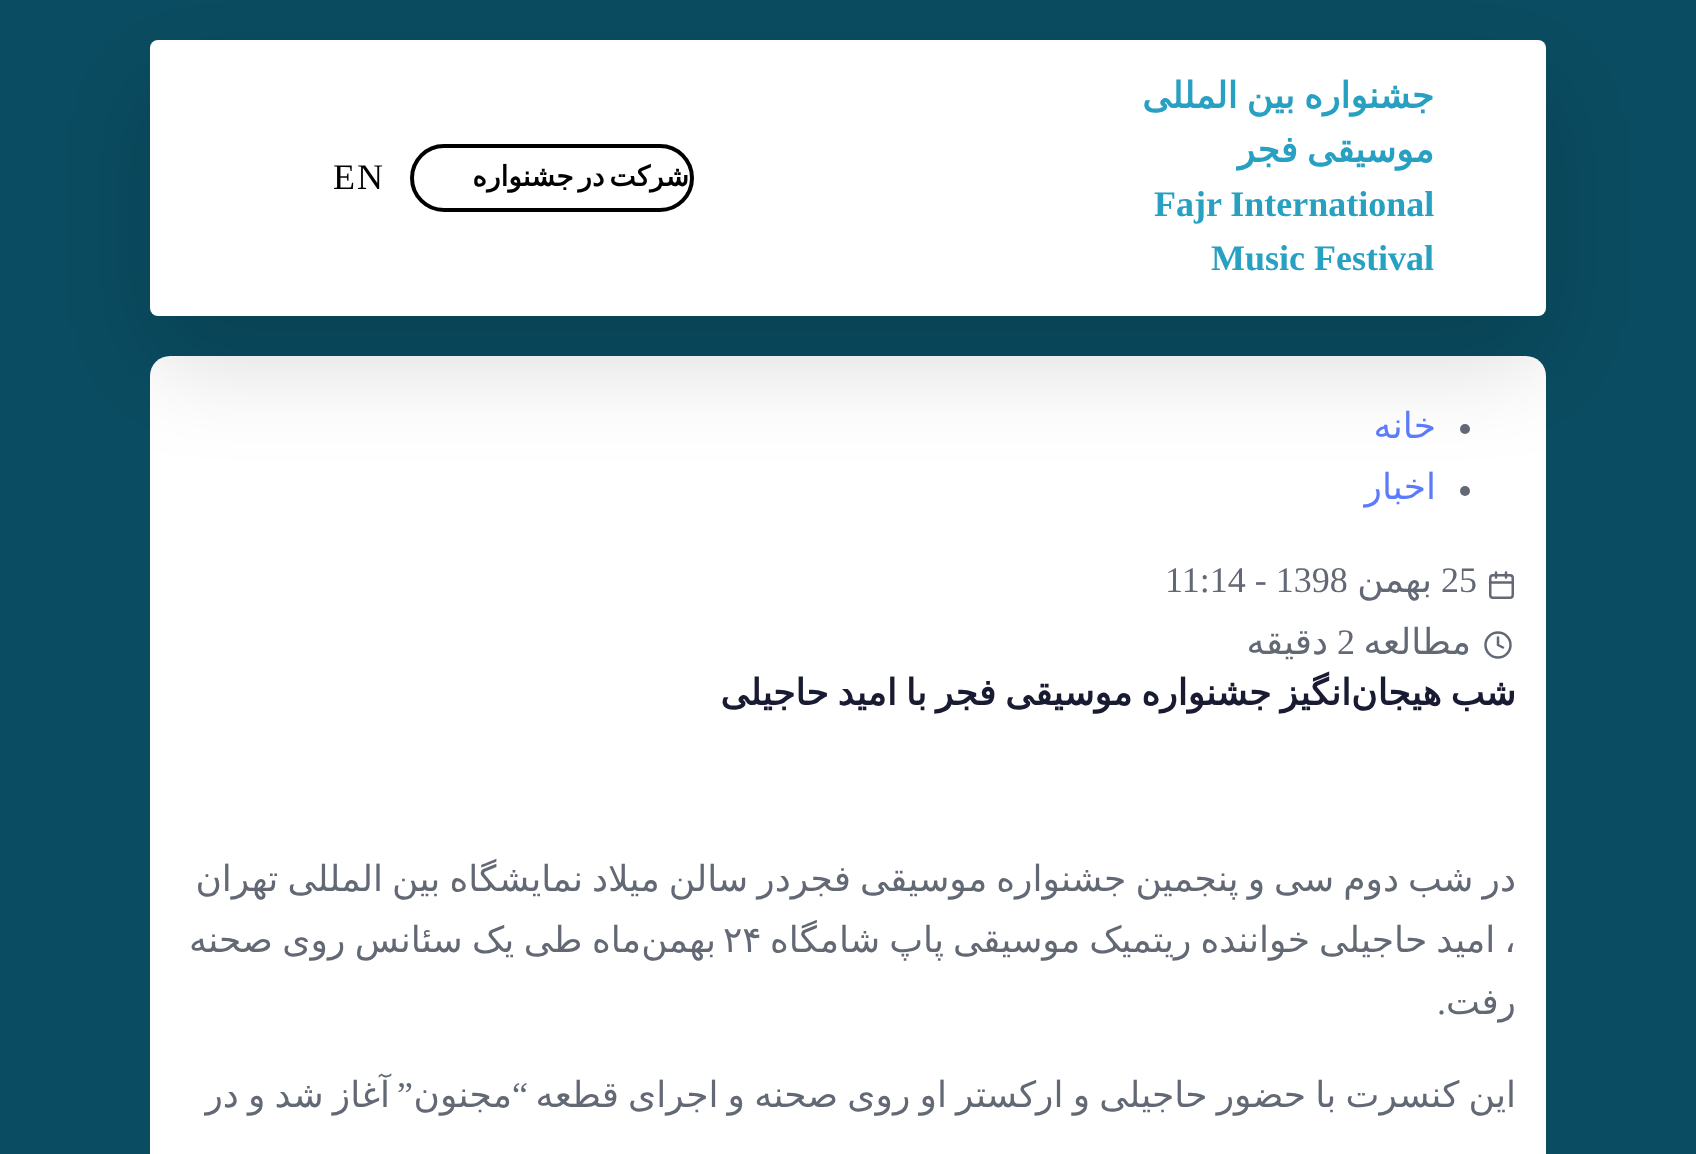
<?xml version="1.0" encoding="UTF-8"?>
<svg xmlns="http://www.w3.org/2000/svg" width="1696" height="1154">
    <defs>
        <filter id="blur1" x="-50%" y="-200%" width="200%" height="500%"><feGaussianBlur stdDeviation="50"/></filter>
        <clipPath id="clip1"><rect x="414" y="148" width="276" height="60" rx="30"/></clipPath>
    </defs>
    <rect width="100%" height="100%" fill="#0A4C61"/>
    <rect x="150" y="356" width="1396" height="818" rx="20" fill="#FFFFFF"/>
    <circle cx="1465" cy="429" r="5" fill="#626974"/>
    <circle cx="1465" cy="491" r="5" fill="#626974"/>
    <rect x="150" y="84" width="1396" height="276" rx="8" fill="#000000" fill-opacity="0.15" filter="url(#blur1)"/>
    <rect x="150" y="40" width="1396" height="276" rx="8" fill="#FFFFFF"/>
    <text font-family="DejaVu Sans" font-size="36" font-weight="700" direction="rtl" fill="#27A0C1">
        <tspan x="1434" y="108" word-spacing="-2.4">جشنواره بین المللی</tspan>
        <tspan x="1434" y="162" word-spacing="-2.4">موسیقی فجر</tspan>
    </text>
    <text x="1154" y="216" font-family="Liberation Serif" font-size="36" font-weight="700" fill="#27A0C1">Fajr International</text>
    <text x="1211" y="270" font-family="Liberation Serif" font-size="36" font-weight="700" fill="#27A0C1">Music Festival</text>
    <rect x="412" y="146" width="280" height="64" rx="32" fill="none" stroke="#000000" stroke-width="4"/>
    <g clip-path="url(#clip1)">
        <text x="689" y="186" word-spacing="-4" font-family="DejaVu Sans" font-size="28" font-weight="700" letter-spacing="2" direction="rtl" fill="#000000">شرکت در جشنواره</text>
    </g>
    <text x="333" y="189" font-family="Liberation Serif" font-size="36" letter-spacing="2" fill="#000000">EN</text>
    <text font-family="DejaVu Sans" font-size="36" direction="rtl" fill="#5B7BFB">
        <tspan x="1436" y="438">خانه</tspan>
        <tspan x="1436" y="499">اخبار</tspan>
    </text>
    <rect x="1490.25" y="575.25" width="22.5" height="22.5" rx="2.75" fill="none" stroke="#626974" stroke-width="2.5"/>
    <path d="M 1506 572.5 V 577.5 M 1496 572.5 V 577.5 M 1490 582.5 H 1512" fill="none" stroke="#626974" stroke-width="2.5" stroke-linecap="round" stroke-linejoin="round"/>
    <text x="1441" y="592" font-family="Liberation Serif" font-size="36" fill="#626974">25</text>
    <text x="1165" y="592" font-family="Liberation Serif" font-size="36" fill="#626974">11:14 - 1398</text>
    <text x="1432" y="592" font-family="DejaVu Sans" font-size="36" direction="rtl" fill="#626974">بهمن</text>
    <circle cx="1498" cy="645" r="12.5" fill="none" stroke="#626974" stroke-width="2.5"/>
    <text x="1471" y="654" font-family="DejaVu Sans" font-size="36" direction="rtl" fill="#626974">مطالعه</text>
    <text x="1337" y="654" font-family="Liberation Serif" font-size="36" fill="#626974">2</text>
    <text x="1328" y="654" font-family="DejaVu Sans" font-size="36" direction="rtl" fill="#626974">دقیقه</text>
    <path d="M 1498 637.5 V 645 L 1503 647.5" fill="none" stroke="#626974" stroke-width="2.5" stroke-linecap="round" stroke-linejoin="round"/>
    <text x="1351" y="705" word-spacing="-2.4" font-family="DejaVu Sans" font-size="36" font-weight="700" direction="rtl" fill="#181B31">انگیز جشنواره موسیقی فجر با امید حاجیلی</text>
    <text x="1516" y="705" word-spacing="-2.4" font-family="DejaVu Sans" font-size="36" font-weight="700" direction="rtl" fill="#181B31">شب هیجان</text>
    <text font-family="DejaVu Sans" font-size="36" direction="rtl" fill="#626974">
        <tspan x="1516" y="891" word-spacing="-2.4">در شب دوم سی و پنجمین جشنواره موسیقی فجردر سالن میلاد نمایشگاه بین المللی تهران</tspan>
        <tspan x="1516" y="952" word-spacing="-2.4">، امید حاجیلی خواننده ریتمیک موسیقی پاپ شامگاه</tspan>
    </text>
    <text x="723" y="952" font-family="DejaVu Sans" font-size="36" fill="#626974">۲۴</text>
    <text x="641" y="952" word-spacing="-2" font-family="DejaVu Sans" font-size="36" direction="rtl" fill="#626974">ماه طی یک سئانس روی صحنه</text>
    <text x="716" y="952" font-family="DejaVu Sans" font-size="36" direction="rtl" fill="#626974">بهمن</text>
    <text x="1516" y="1014" font-family="DejaVu Sans" font-size="36" direction="rtl" fill="#626974">رفت</text>
    <text x="1446" y="1014" font-family="Liberation Serif" font-size="36" direction="rtl" fill="#626974">.</text>
    <text x="1516" y="1107" word-spacing="-2.25" font-family="DejaVu Sans" font-size="36" direction="rtl" fill="#626974">این کنسرت با حضور حاجیلی و ارکستر او روی صحنه و اجرای قطعه</text>
    <text x="528" y="1107" font-family="Liberation Serif" font-size="36" direction="rtl" fill="#626974">“</text>
    <text x="390" y="1107" word-spacing="-2.25" font-family="DejaVu Sans" font-size="36" direction="rtl" fill="#626974">آغاز شد و در</text>
    <text x="413" y="1107" font-family="Liberation Serif" font-size="36" direction="rtl" fill="#626974">”</text>
    <text x="512" y="1107" font-family="DejaVu Sans" font-size="36" direction="rtl" fill="#626974">مجنون</text>
</svg>
